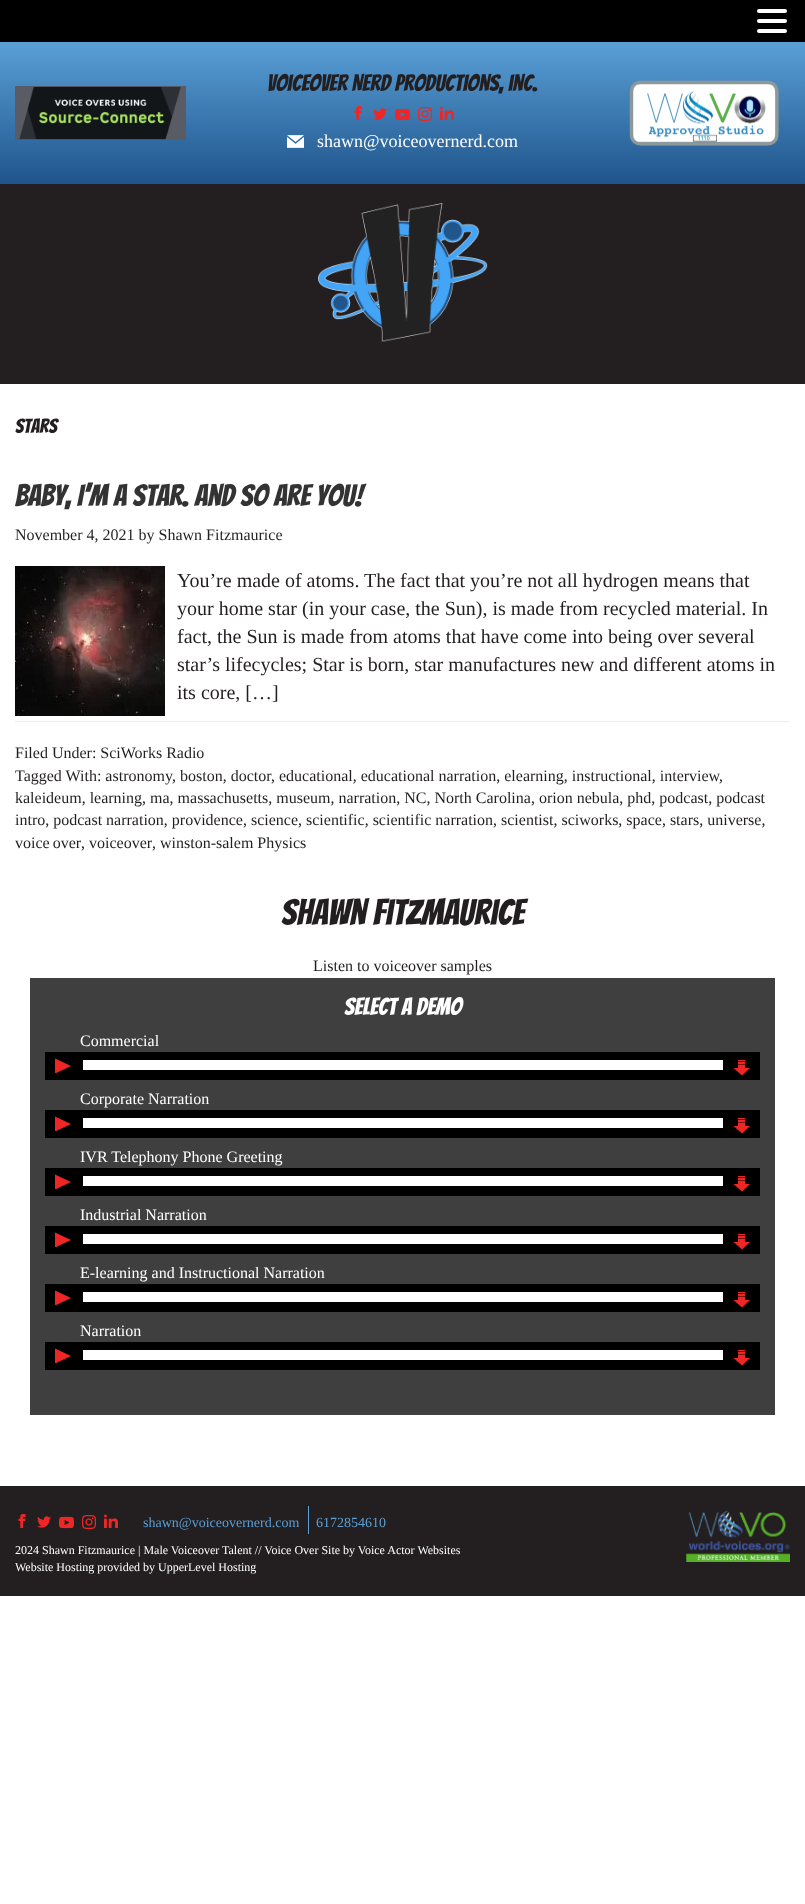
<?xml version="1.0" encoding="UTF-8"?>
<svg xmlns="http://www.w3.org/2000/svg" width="805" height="1904">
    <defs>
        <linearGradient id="g1" gradientUnits="userSpaceOnUse" x1="403" y1="184" x2="403" y2="42"><stop offset="0" stop-color="#1F558C"/><stop offset="1" stop-color="#599FD6"/></linearGradient>
        <clipPath id="clip1"><rect x="55" y="1057" width="20" height="16"/></clipPath>
        <clipPath id="clip2"><rect x="55" y="1115" width="20" height="16"/></clipPath>
        <clipPath id="clip3"><rect x="55" y="1173" width="20" height="16"/></clipPath>
        <clipPath id="clip4"><rect x="55" y="1231" width="20" height="16"/></clipPath>
        <clipPath id="clip5"><rect x="55" y="1289" width="20" height="16"/></clipPath>
        <clipPath id="clip6"><rect x="55" y="1347" width="20" height="16"/></clipPath>
    </defs>
    <rect width="100%" height="100%" fill="#FFFFFF"/>
    <rect x="0" y="0" width="805" height="42" fill="#000000"/>
    <rect x="757" y="9" width="30" height="4" rx="2" fill="#FFFFFF"/>
    <rect x="757" y="19" width="30" height="4" rx="2" fill="#FFFFFF"/>
    <rect x="757" y="29" width="30" height="4" rx="2" fill="#FFFFFF"/>
    <rect x="0" y="42" width="805" height="142" fill="url(#g1)"/>
    <image x="15" y="86" width="171" height="54" href="img_01.png"/>
    <text x="267" y="91" font-family="Bangers" font-size="23" fill="#231F20">Voiceover Nerd Productions, inc.</text>
    <image x="354" y="106" width="8" height="14" href="img_02.png"/>
    <image x="373" y="108" width="14" height="12" href="img_03.png"/>
    <image x="395" y="108" width="15" height="13" href="img_04.png"/>
    <image x="418" y="107" width="14" height="14" href="img_05.png"/>
    <image x="440" y="106" width="14" height="14" href="img_06.png"/>
    <image x="287" y="135" width="17" height="13" href="img_07.png"/>
    <text x="317" y="147" font-family="Liberation Serif" font-size="18" fill="#FFFFFF">shawn@voiceovernerd.com</text>
    <image x="629" y="80" width="150" height="66" href="img_08.png"/>
    <rect x="0" y="184" width="805" height="200" fill="#231F20"/>
    <image x="318" y="203" width="170" height="139" href="img_09.png"/>
    <text x="15" y="433" font-family="Bangers" font-size="20" fill="#231F20">stars</text>
    <text x="15" y="506" font-family="Bangers" font-size="30" fill="#333333">Baby, I’m a Star. And so are you!</text>
    <text x="15" y="540" font-family="Liberation Serif" font-size="16" fill="#231F20">November 4, 2021 by Shawn Fitzmaurice</text>
    <image x="15" y="566" width="150" height="150" href="img_10.png"/>
    <text font-family="Liberation Serif" font-size="20" fill="#231F20">
        <tspan x="177" y="587">You’re made of atoms. The fact that you’re not all hydrogen means that</tspan>
        <tspan x="177" y="615">your home star (in your case, the Sun), is made from recycled material. In</tspan>
        <tspan x="177" y="643">fact, the Sun is made from atoms that have come into being over several</tspan>
        <tspan x="177" y="671">star’s lifecycles; Star is born, star manufactures new and different atoms in</tspan>
        <tspan x="177" y="699">its core, […]</tspan>
    </text>
    <rect x="15" y="721" width="775" height="1" fill="#EEEEEE"/>
    <text font-family="Liberation Serif" font-size="16" fill="#231F20">
        <tspan x="15" y="758">Filed Under: SciWorks Radio</tspan>
        <tspan x="15" y="781">Tagged With: astronomy</tspan>
    </text>
    <text x="172" y="781" font-family="Liberation Serif" font-size="16" fill="#231F20">, boston, doctor</text>
    <text x="271" y="781" font-family="Liberation Serif" font-size="16" fill="#231F20">, educational, educational narration, elearning, instructional, interview</text>
    <text x="719" y="781" font-family="Liberation Serif" font-size="16" fill="#231F20">,</text>
    <text font-family="Liberation Serif" font-size="16" fill="#231F20">
        <tspan x="15" y="803">kaleideum, learning, ma, massachusetts, museum, narration, NC, North Carolina, orion nebula, phd, podcast, podcast</tspan>
        <tspan x="15" y="825">intro, podcast narration, providence, science, scientific, scientific narration, scientist, sciworks, space, stars, universe,</tspan>
        <tspan x="15" y="848" word-spacing="-1">voice over</tspan>
    </text>
    <text x="81" y="848" font-family="Liberation Serif" font-size="16" fill="#231F20">, voiceover</text>
    <text x="152" y="848" font-family="Liberation Serif" font-size="16" fill="#231F20">, winston-salem Physics</text>
    <text x="281" y="925" font-family="Bangers" font-size="36" fill="#231F20">Shawn Fitzmaurice</text>
    <text x="313" y="971" font-family="Liberation Serif" font-size="16" fill="#231F20">Listen to voiceover samples</text>
    <rect x="30" y="978" width="745" height="437" fill="#3F3F3F"/>
    <text x="344" y="1015" font-family="Bangers" font-size="24" fill="#FFFFFF">Select a demo</text>
    <rect x="45" y="1052" width="715" height="28" fill="#000000"/>
    <text x="80" y="1046" font-family="Liberation Serif" font-size="16" fill="#FFFFFF">Commercial</text>
    <g clip-path="url(#clip1)">
        <path d="M 71 1066 L 52 1075 V 1057 Z" fill="#EE2626"/>
    </g>
    <rect x="83" y="1060" width="640" height="10" fill="#FFFFFF"/>
    <rect x="738" y="1060" width="7" height="1" fill="#EE2626"/>
    <path d="M 745 1068 V 1064.5 H 738 V 1068 H 733.5 L 742 1075.5 L 750 1068 Z" fill="#EE2626"/>
    <rect x="738" y="1062" width="7" height="2" fill="#EE2626"/>
    <rect x="45" y="1110" width="715" height="28" fill="#000000"/>
    <text x="80" y="1104" font-family="Liberation Serif" font-size="16" fill="#FFFFFF">Corporate Narration</text>
    <g clip-path="url(#clip2)">
        <path d="M 71 1124 L 52 1133 V 1115 Z" fill="#EE2626"/>
    </g>
    <rect x="83" y="1118" width="640" height="10" fill="#FFFFFF"/>
    <rect x="738" y="1118" width="7" height="1" fill="#EE2626"/>
    <path d="M 745 1126 V 1122.5 H 738 V 1126 H 733.5 L 742 1133.5 L 750 1126 Z" fill="#EE2626"/>
    <rect x="738" y="1120" width="7" height="2" fill="#EE2626"/>
    <rect x="45" y="1168" width="715" height="28" fill="#000000"/>
    <text x="80" y="1162" font-family="Liberation Serif" font-size="16" fill="#FFFFFF">IVR Telephony Phone Greeting</text>
    <g clip-path="url(#clip3)">
        <path d="M 71 1182 L 52 1191 V 1173 Z" fill="#EE2626"/>
    </g>
    <rect x="83" y="1176" width="640" height="10" fill="#FFFFFF"/>
    <rect x="738" y="1176" width="7" height="1" fill="#EE2626"/>
    <path d="M 745 1184 V 1180.5 H 738 V 1184 H 733.5 L 742 1191.5 L 750 1184 Z" fill="#EE2626"/>
    <rect x="738" y="1178" width="7" height="2" fill="#EE2626"/>
    <rect x="45" y="1226" width="715" height="28" fill="#000000"/>
    <text x="80" y="1220" font-family="Liberation Serif" font-size="16" fill="#FFFFFF">Industrial Narration</text>
    <g clip-path="url(#clip4)">
        <path d="M 71 1240 L 52 1249 V 1231 Z" fill="#EE2626"/>
    </g>
    <rect x="83" y="1234" width="640" height="10" fill="#FFFFFF"/>
    <rect x="738" y="1234" width="7" height="1" fill="#EE2626"/>
    <path d="M 745 1242 V 1238.5 H 738 V 1242 H 733.5 L 742 1249.5 L 750 1242 Z" fill="#EE2626"/>
    <rect x="738" y="1236" width="7" height="2" fill="#EE2626"/>
    <rect x="45" y="1284" width="715" height="28" fill="#000000"/>
    <text x="80" y="1278" font-family="Liberation Serif" font-size="16" fill="#FFFFFF">E-learning and Instructional Narration</text>
    <g clip-path="url(#clip5)">
        <path d="M 71 1298 L 52 1307 V 1289 Z" fill="#EE2626"/>
    </g>
    <rect x="83" y="1292" width="640" height="10" fill="#FFFFFF"/>
    <rect x="738" y="1292" width="7" height="1" fill="#EE2626"/>
    <path d="M 745 1300 V 1296.5 H 738 V 1300 H 733.5 L 742 1307.5 L 750 1300 Z" fill="#EE2626"/>
    <rect x="738" y="1294" width="7" height="2" fill="#EE2626"/>
    <rect x="45" y="1342" width="715" height="28" fill="#000000"/>
    <text x="80" y="1336" font-family="Liberation Serif" font-size="16" fill="#FFFFFF">Narration</text>
    <g clip-path="url(#clip6)">
        <path d="M 71 1356 L 52 1365 V 1347 Z" fill="#EE2626"/>
    </g>
    <rect x="83" y="1350" width="640" height="10" fill="#FFFFFF"/>
    <rect x="738" y="1350" width="7" height="1" fill="#EE2626"/>
    <path d="M 745 1358 V 1354.5 H 738 V 1358 H 733.5 L 742 1365.5 L 750 1358 Z" fill="#EE2626"/>
    <rect x="738" y="1352" width="7" height="2" fill="#EE2626"/>
    <rect x="0" y="1486" width="805" height="110" fill="#231F20"/>
    <image x="18" y="1514" width="8" height="14" href="img_11.png"/>
    <image x="37" y="1516" width="14" height="12" href="img_12.png"/>
    <image x="59" y="1516" width="15" height="13" href="img_13.png"/>
    <image x="82" y="1515" width="14" height="14" href="img_14.png"/>
    <image x="104" y="1514" width="14" height="14" href="img_15.png"/>
    <text x="143" y="1527" font-family="Liberation Serif" font-size="14" fill="#599FD6">shawn@voiceovernerd.com</text>
    <rect x="308" y="1506" width="1" height="28" fill="#599FD6"/>
    <text x="316" y="1527" font-family="Liberation Serif" font-size="14" fill="#599FD6">6172854610</text>
    <text font-family="Liberation Serif" font-size="12" fill="#FFFFFF">
        <tspan x="15" y="1554">2024 Shawn Fitzmaurice | Male Voiceover Talent // Voice Over Site by Voice Actor Websites</tspan>
        <tspan x="15" y="1571">Website Hosting provided by UpperLevel Hosting</tspan>
    </text>
    <image x="686" y="1510" width="104" height="52" href="img_16.png"/>
</svg>
